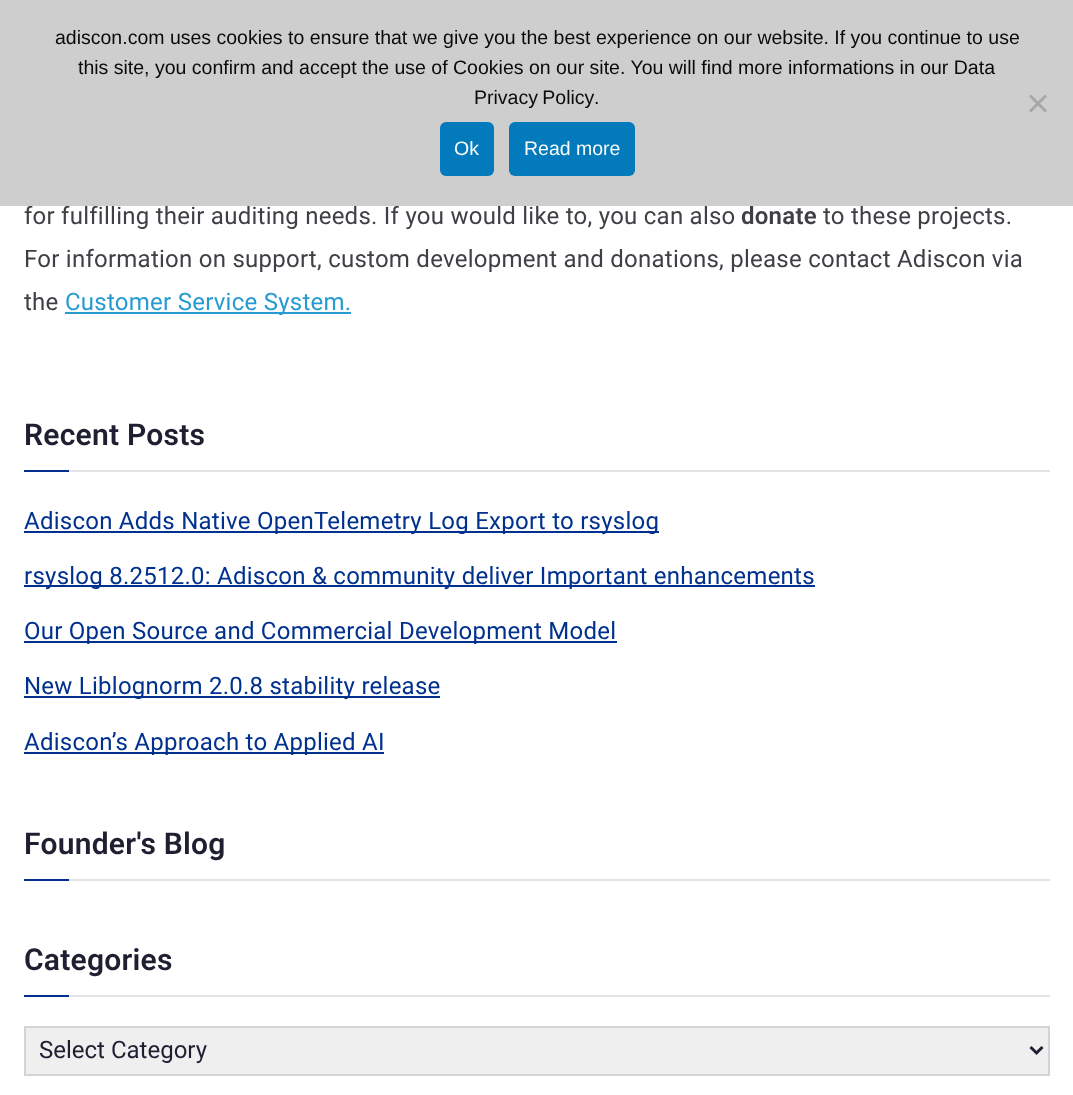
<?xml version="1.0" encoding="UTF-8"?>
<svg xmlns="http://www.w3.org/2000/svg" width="1073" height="1095">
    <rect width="100%" height="100%" fill="#FFFFFF"/>
    <text x="24" y="224" font-family="Roboto" font-size="24" letter-spacing="0.25" fill="#3F3F46">for fulfilling their auditing needs. If you would like to, you can also</text>
    <rect x="0" y="0" width="1073" height="206" fill="#CECECE"/>
    <text x="55" y="44" font-family="Liberation Sans" font-size="19.5" fill="#0A0A0A">adiscon.com uses cookies to ensure that we give you the best experience on our website. If you continue to use</text>
    <text x="78" y="74" font-family="Liberation Sans" font-size="19.5" fill="#0A0A0A">this site, you confirm and accept the use of Cookies on our site. You will find more informations in our Data</text>
    <text x="474" y="104" word-spacing="-1" font-family="Liberation Sans" font-size="19.5" fill="#0A0A0A">Privacy Policy</text>
    <text x="594" y="104" font-family="Liberation Sans" font-size="19.5" fill="#0A0A0A">.</text>
    <path d="M 1045 94.5 L 1047 96.5 L 1031 112.5 L 1029 110.5 Z" fill="#A7A7A7"/>
    <path d="M 1029 96.5 L 1031 94.5 L 1047 110.5 L 1045 112.5 Z" fill="#A7A7A7"/>
    <rect x="440" y="122" width="54" height="54" rx="6" fill="#027ABB"/>
    <text x="454" y="155" font-family="Liberation Sans" font-size="19.5" fill="#FAFAFA">Ok</text>
    <rect x="509" y="122" width="126" height="54" rx="6" fill="#027ABB"/>
    <text x="524" y="155" font-family="Liberation Sans" font-size="19.5" fill="#FAFAFA">Read more</text>
    <text x="741" y="224" font-family="Roboto" font-size="24" font-weight="600" letter-spacing="0.25" fill="#3F3F46">donate</text>
    <text x="823" y="224" font-family="Roboto" font-size="24" letter-spacing="0.25" fill="#3F3F46">to these projects.</text>
    <text font-family="Roboto" font-size="24" letter-spacing="0.25" fill="#3F3F46">
        <tspan x="24" y="267">For information on support, custom development and donations, please contact Adiscon via</tspan>
        <tspan x="24" y="310">the</tspan>
    </text>
    <rect x="65" y="312" width="286" height="2" fill="#269BD1"/>
    <text x="65" y="310" font-family="Roboto" font-size="24" letter-spacing="0.25" fill="#269BD1">Customer Service System.</text>
    <rect x="69" y="470" width="981" height="2" fill="#E4E4E7"/>
    <text x="24" y="445" font-family="Roboto" font-size="30" font-weight="600" letter-spacing="0.25" fill="#1F1F32">Recent Posts</text>
    <rect x="24" y="470" width="45" height="2" fill="#00318E"/>
    <rect x="24" y="531" width="635" height="2" fill="#00318E"/>
    <text x="24" y="529" font-family="Roboto" font-size="24" letter-spacing="0.25" fill="#00318E">Adiscon Adds Native OpenTelemetry Log Export to rsyslog</text>
    <rect x="24" y="585" width="791" height="2" fill="#00318E"/>
    <text x="24" y="584" font-family="Roboto" font-size="24" letter-spacing="0.25" fill="#00318E">rsyslog 8.2512.0: Adiscon &amp; community deliver Important enhancements</text>
    <rect x="24" y="641" width="593" height="2" fill="#00318E"/>
    <text x="24" y="639" font-family="Roboto" font-size="24" letter-spacing="0.25" fill="#00318E">Our Open Source and Commercial Development Model</text>
    <rect x="24" y="696" width="416" height="2" fill="#00318E"/>
    <text x="24" y="694" font-family="Roboto" font-size="24" letter-spacing="0.25" fill="#00318E">New Liblognorm 2.0.8 stability release</text>
    <rect x="24" y="752" width="360" height="2" fill="#00318E"/>
    <text x="24" y="750" font-family="Roboto" font-size="24" letter-spacing="0.25" fill="#00318E">Adiscon’s Approach to Applied AI</text>
    <rect x="69" y="879" width="981" height="2" fill="#E4E4E7"/>
    <text x="24" y="854" font-family="Roboto" font-size="30" font-weight="600" letter-spacing="0.25" fill="#1F1F32">Founder's Blog</text>
    <rect x="24" y="879" width="45" height="2" fill="#00318E"/>
    <rect x="69" y="995" width="981" height="2" fill="#E4E4E7"/>
    <text x="24" y="970" font-family="Roboto" font-size="30" font-weight="600" letter-spacing="0.25" fill="#1F1F32">Categories</text>
    <rect x="24" y="995" width="45" height="2" fill="#00318E"/>
    <rect x="25" y="1027" width="1024" height="48" fill="#EFEFEF" stroke="#D4D4D8" stroke-width="2"/>
    <path d="M 1030.5 1047 L 1036.5 1053 L 1042.5 1047" fill="none" stroke="#1F1F32" stroke-width="3"/>
    <text x="39" y="1058" font-family="Roboto" font-size="24" fill="#1F1F32">Select Category</text>
</svg>
